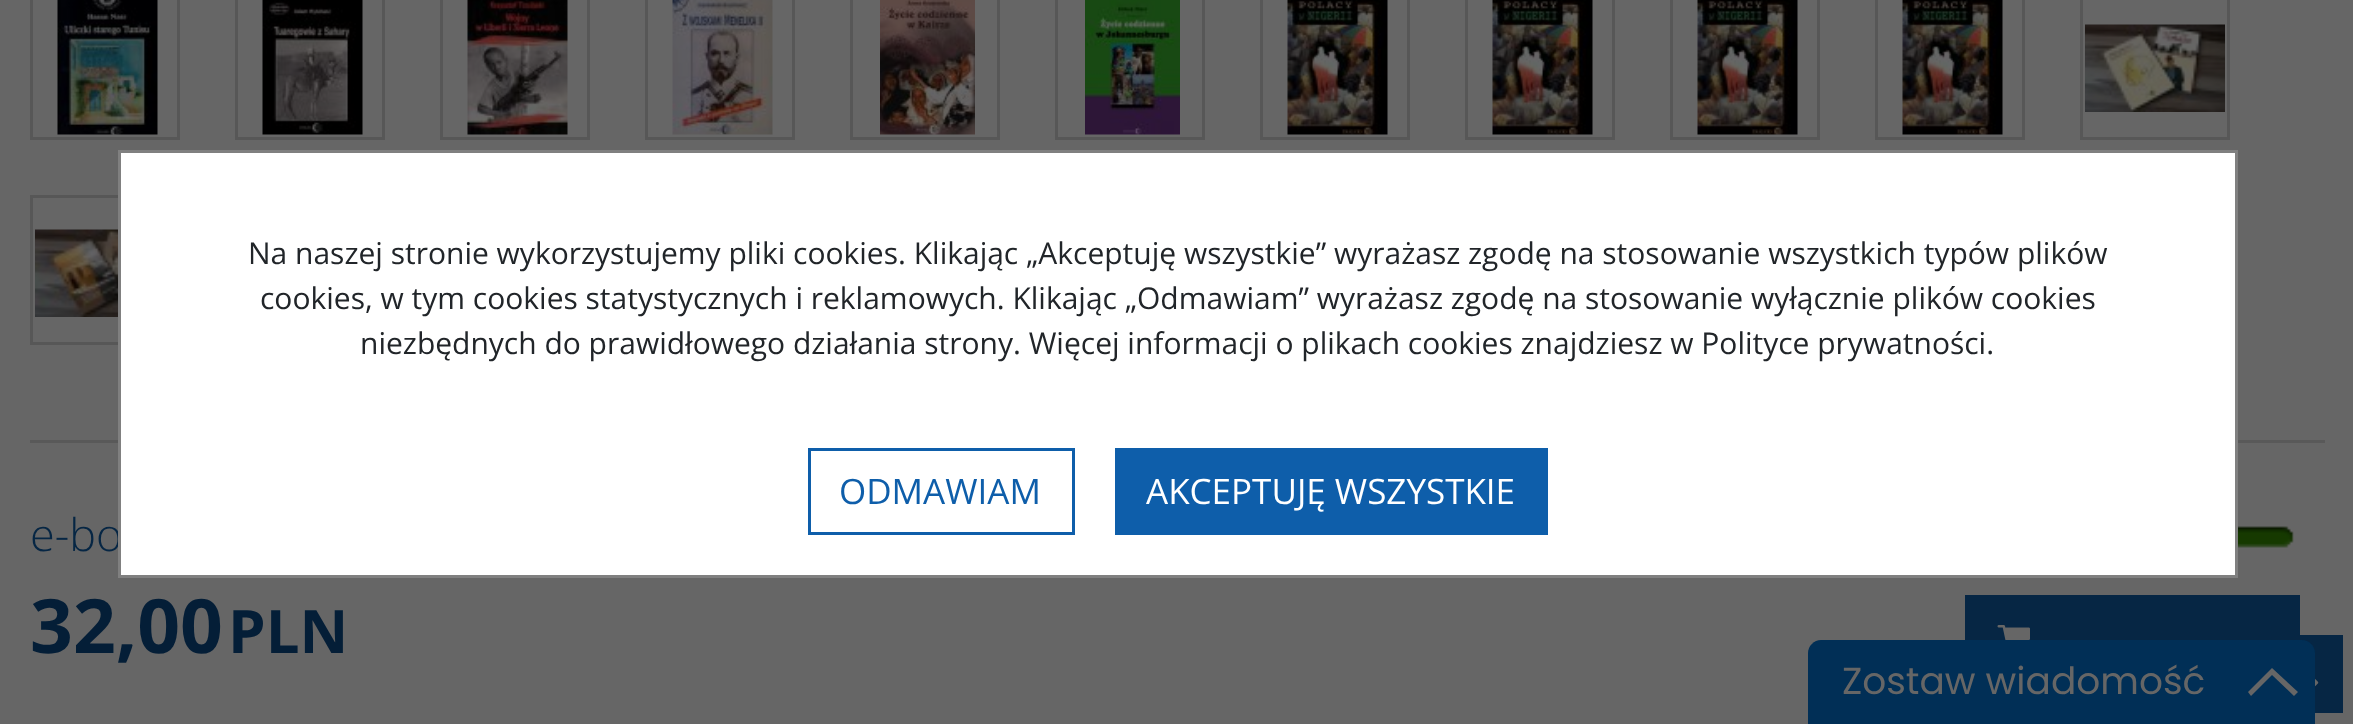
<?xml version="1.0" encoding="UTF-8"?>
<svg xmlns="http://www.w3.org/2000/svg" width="2353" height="724">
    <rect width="100%" height="100%" fill="#666666"/>
    <rect x="31.5" y="196.5" width="147" height="147" fill="none" stroke="#575757" stroke-width="3"/>
    <rect x="30" y="440" width="2295" height="3" fill="#595959"/>
    <text x="30" y="551" font-family="Open Sans" font-size="45" font-weight="300" fill="#062644">e-bo</text>
    <rect x="119.5" y="151.5" width="2117" height="425" fill="#FFFFFF" stroke="#808080" stroke-width="3"/>
    <text x="248" y="264" font-family="Open Sans" font-size="30" fill="#212529">Na naszej stronie wykorzystujemy pliki cookies. Klikając „Akceptuję wszystkie” wyrażasz zgodę na stosowanie wszystkich typów plików</text>
    <text x="260" y="309" font-family="Open Sans" font-size="30" fill="#212529">cookies, w tym cookies statystycznych i reklamowych. Klikając „Odmawiam” wyrażasz zgodę na stosowanie wyłącznie plików cookies</text>
    <text x="360" y="354" font-family="Open Sans" font-size="30" fill="#212529">niezbędnych do prawidłowego działania strony. Więcej informacji o plikach cookies znajdziesz w Polityce prywatności.</text>
    <rect x="809.5" y="449.5" width="264" height="84" fill="none" stroke="#0E5EAA" stroke-width="3"/>
    <text x="839" y="504" font-family="Open Sans" font-size="35" fill="#0E5EAA">ODMAWIAM</text>
    <rect x="1115" y="448" width="433" height="87" fill="#0E5EAA"/>
    <text x="1146" y="504" font-family="Open Sans" font-size="35" fill="#FFFFFF">AKCEPTUJĘ WSZYSTKIE</text>
    <rect x="31.5" y="-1.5" width="147" height="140" fill="none" stroke="#575757" stroke-width="3"/>
    <image x="57" y="0" width="101" height="135" href="img_01.png"/>
    <rect x="236.5" y="-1.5" width="147" height="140" fill="none" stroke="#575757" stroke-width="3"/>
    <image x="262" y="0" width="101" height="135" href="img_02.png"/>
    <rect x="441.5" y="-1.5" width="147" height="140" fill="none" stroke="#575757" stroke-width="3"/>
    <image x="467" y="0" width="101" height="135" href="img_03.png"/>
    <rect x="646.5" y="-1.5" width="147" height="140" fill="none" stroke="#575757" stroke-width="3"/>
    <image x="672" y="0" width="101" height="135" href="img_04.png"/>
    <rect x="851.5" y="-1.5" width="147" height="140" fill="none" stroke="#575757" stroke-width="3"/>
    <image x="880" y="0" width="95" height="135" href="img_05.png"/>
    <rect x="1056.5" y="-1.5" width="147" height="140" fill="none" stroke="#575757" stroke-width="3"/>
    <image x="1085" y="0" width="95" height="135" href="img_06.png"/>
    <rect x="1261.5" y="-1.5" width="147" height="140" fill="none" stroke="#575757" stroke-width="3"/>
    <image x="1287" y="0" width="101" height="135" href="img_07.png"/>
    <rect x="1466.5" y="-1.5" width="147" height="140" fill="none" stroke="#575757" stroke-width="3"/>
    <image x="1492" y="0" width="101" height="135" href="img_08.png"/>
    <rect x="1671.5" y="-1.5" width="147" height="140" fill="none" stroke="#575757" stroke-width="3"/>
    <image x="1697" y="0" width="101" height="135" href="img_09.png"/>
    <rect x="1876.5" y="-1.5" width="147" height="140" fill="none" stroke="#575757" stroke-width="3"/>
    <image x="1902" y="0" width="101" height="135" href="img_10.png"/>
    <rect x="2081.5" y="-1.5" width="147" height="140" fill="none" stroke="#575757" stroke-width="3"/>
    <image x="2085" y="24" width="140" height="88" href="img_11.png"/>
    <image x="35" y="229" width="83" height="88" href="img_12.png"/>
    <image x="2238" y="526" width="56" height="22" href="img_13.png"/>
    <text x="30" y="653" font-family="Open Sans" font-size="75" font-weight="700" fill="#041E37">32,00</text>
    <text x="228" y="653" font-family="Open Sans" font-size="60" font-weight="700" fill="#041E37">PLN</text>
    <rect x="1965" y="595" width="335" height="45" fill="#062644"/>
    <image x="1997" y="625" width="33" height="15" href="img_14.png"/>
    <rect x="2263" y="635" width="80" height="78" fill="#062644"/>
    <image x="2315" y="679" width="4" height="8" href="img_15.png"/>
    <path d="M 1821 640 H 2302 C 2309 640 2315 646 2315 653 V 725 H 1808 V 653 C 1808 646 1814 640 1821 640 Z" fill="#012F56"/>
    <text x="1842" y="694" font-family="Poppins" font-size="37.5" fill="#666666">Zostaw wiadomość</text>
    <path d="M 2272 668 L 2298 692 L 2294 696 L 2272 675 L 2251 696 L 2248 692 Z" fill="#666666"/>
</svg>
